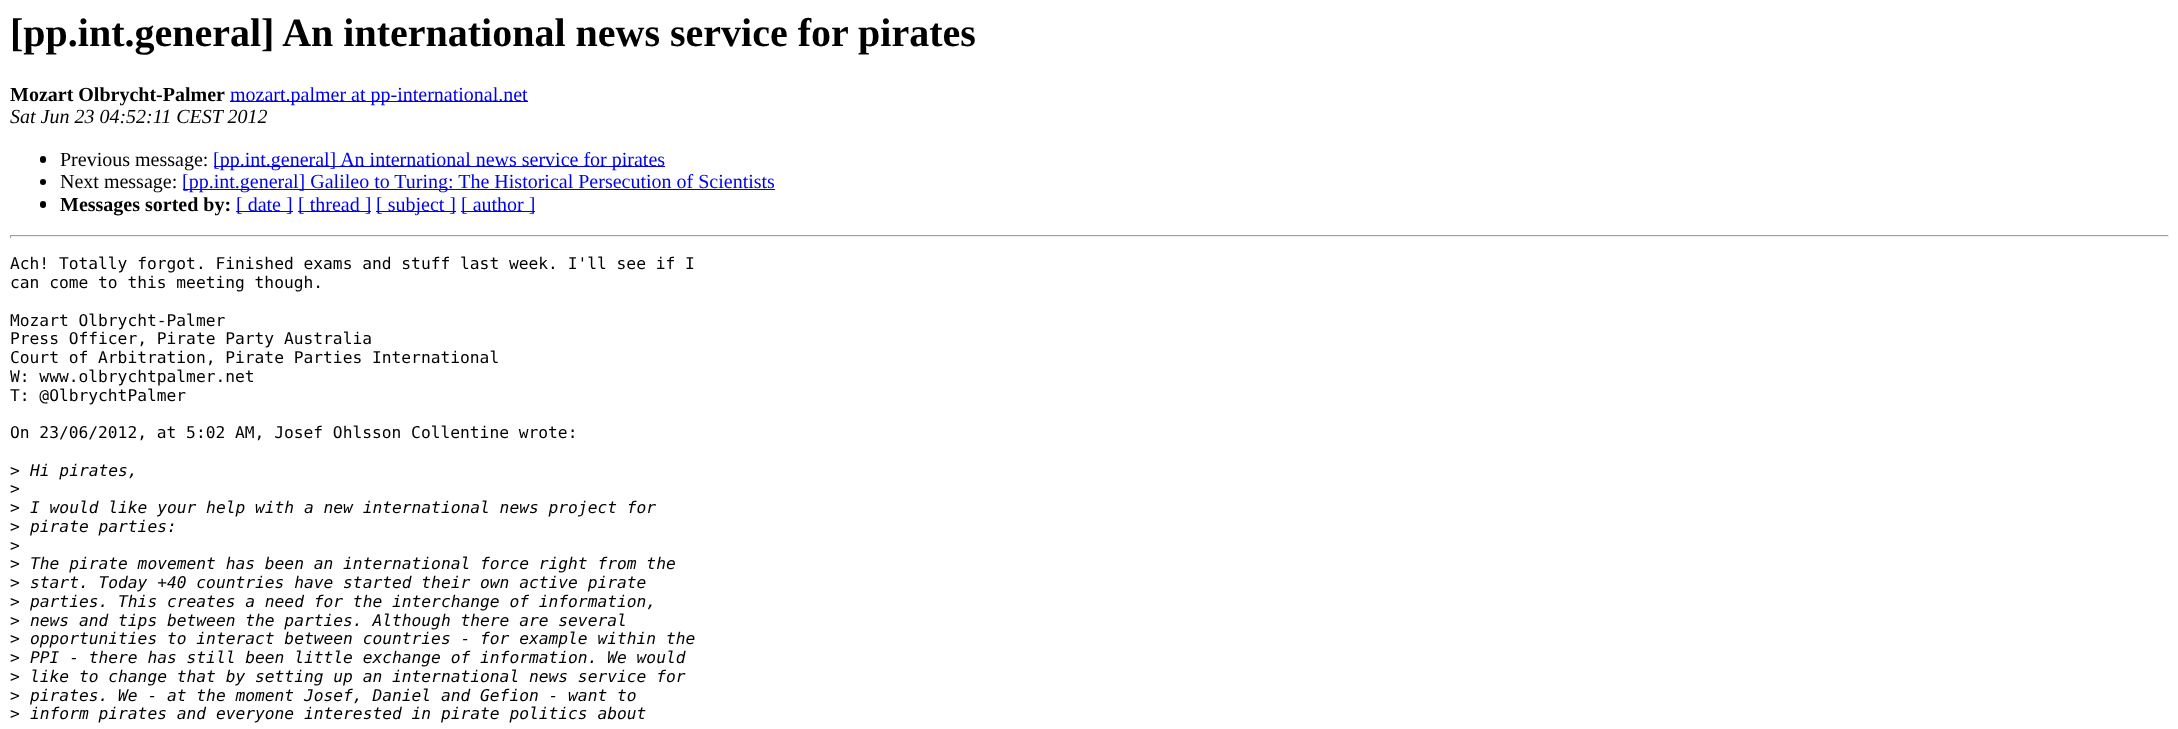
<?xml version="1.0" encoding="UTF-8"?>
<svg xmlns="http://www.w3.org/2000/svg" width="2178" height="729">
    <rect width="100%" height="100%" fill="#FFFFFF"/>
    <text x="10" y="46" font-family="Liberation Serif" font-size="40" font-weight="700" fill="#000000">[pp.int.general] An international news service for pirates</text>
    <text x="10" y="101" font-family="Liberation Serif" font-size="20" font-weight="700" fill="#000000">Mozart Olbrycht-Palmer</text>
    <rect x="230" y="101" width="298" height="1" fill="#0000EE"/>
    <text x="230" y="101" font-family="Liberation Serif" font-size="20" fill="#0000EE">mozart.palmer at pp-international.net</text>
    <text x="10" y="123" font-family="Liberation Serif" font-size="20" font-style="italic" fill="#000000">Sat Jun 23 04:52:11 CEST 2012</text>
    <rect x="40" y="156" width="6" height="7" rx="3" fill="#000000"/>
    <text x="60" y="166" font-family="Liberation Serif" font-size="20" fill="#000000">Previous message:</text>
    <rect x="214" y="166" width="451" height="1" fill="#0000EE"/>
    <text x="213" y="166" font-family="Liberation Serif" font-size="20" fill="#0000EE">[pp.int.general] An international news service for pirates</text>
    <circle cx="43" cy="182" r="3" fill="#000000"/>
    <text x="60" y="188" font-family="Liberation Serif" font-size="20" fill="#000000">Next message:</text>
    <rect x="183" y="189" width="592" height="1" fill="#0000EE"/>
    <text x="182" y="188" font-family="Liberation Serif" font-size="20" fill="#0000EE">[pp.int.general] Galileo to Turing: The Historical Persecution of Scientists</text>
    <rect x="40" y="201" width="6" height="7" rx="3" fill="#000000"/>
    <text x="60" y="211" font-family="Liberation Serif" font-size="20" font-weight="700" fill="#000000">Messages sorted by:</text>
    <rect x="236" y="211" width="57" height="1" fill="#0000EE"/>
    <text x="236" y="211" font-family="Liberation Serif" font-size="20" fill="#0000EE">[ date ]</text>
    <rect x="298" y="211" width="73" height="1" fill="#0000EE"/>
    <text x="298" y="211" font-family="Liberation Serif" font-size="20" fill="#0000EE">[ thread ]</text>
    <rect x="376" y="211" width="80" height="1" fill="#0000EE"/>
    <text x="376" y="211" font-family="Liberation Serif" font-size="20" fill="#0000EE">[ subject ]</text>
    <rect x="461" y="211" width="74" height="1" fill="#0000EE"/>
    <text x="461" y="211" font-family="Liberation Serif" font-size="20" fill="#0000EE">[ author ]</text>
    <rect x="10" y="235" width="2159" height="1" fill="#9F9F9F"/>
    <rect x="2168" y="235" width="1" height="3" fill="#EEEEEE"/>
    <rect x="10" y="236" width="2159" height="1" fill="#EEEEEE"/>
    <rect x="10" y="235" width="1" height="3" fill="#9F9F9F"/>
    <text font-family="DejaVu Sans Mono" font-size="16.25" fill="#000000">
        <tspan x="10" y="269">Ach! Totally forgot. Finished exams and stuff last week. I'll see if I</tspan>
        <tspan x="10" y="288">can come to this meeting though.</tspan>
    </text>
    <text font-family="DejaVu Sans Mono" font-size="16.25" fill="#000000">
        <tspan x="10" y="326">Mozart Olbrycht-Palmer</tspan>
        <tspan x="10" y="344">Press Officer, Pirate Party Australia</tspan>
        <tspan x="10" y="363">Court of Arbitration, Pirate Parties International</tspan>
        <tspan x="10" y="382">W: www.olbrychtpalmer.net</tspan>
        <tspan x="10" y="401">T: @OlbrychtPalmer</tspan>
    </text>
    <text x="10" y="438" font-family="DejaVu Sans Mono" font-size="16.25" fill="#000000">On 23/06/2012, at 5:02 AM, Josef Ohlsson Collentine wrote:</text>
    <text x="10" y="476" font-family="DejaVu Sans Mono" font-size="16.25" fill="#000000">&gt;</text>
    <text x="30" y="476" font-family="DejaVu Sans Mono" font-size="16.25" font-style="italic" fill="#000000">Hi pirates,</text>
    <text font-family="DejaVu Sans Mono" font-size="16.25" fill="#000000">
        <tspan x="10" y="494">&gt;</tspan>
        <tspan x="10" y="513">&gt;</tspan>
    </text>
    <text x="30" y="513" font-family="DejaVu Sans Mono" font-size="16.25" font-style="italic" fill="#000000">I would like your help with a new international news project for</text>
    <text x="10" y="532" font-family="DejaVu Sans Mono" font-size="16.25" fill="#000000">&gt;</text>
    <text x="30" y="532" font-family="DejaVu Sans Mono" font-size="16.25" font-style="italic" fill="#000000">pirate parties:</text>
    <text font-family="DejaVu Sans Mono" font-size="16.25" fill="#000000">
        <tspan x="10" y="551">&gt;</tspan>
        <tspan x="10" y="569">&gt;</tspan>
    </text>
    <text x="30" y="569" font-family="DejaVu Sans Mono" font-size="16.25" font-style="italic" fill="#000000">The pirate movement has been an international force right from the</text>
    <text x="10" y="588" font-family="DejaVu Sans Mono" font-size="16.25" fill="#000000">&gt;</text>
    <text x="30" y="588" font-family="DejaVu Sans Mono" font-size="16.25" font-style="italic" fill="#000000">start. Today +40 countries have started their own active pirate</text>
    <text x="10" y="607" font-family="DejaVu Sans Mono" font-size="16.25" fill="#000000">&gt;</text>
    <text x="30" y="607" font-family="DejaVu Sans Mono" font-size="16.25" font-style="italic" fill="#000000">parties. This creates a need for the interchange of information,</text>
    <text x="10" y="626" font-family="DejaVu Sans Mono" font-size="16.25" fill="#000000">&gt;</text>
    <text x="30" y="626" font-family="DejaVu Sans Mono" font-size="16.25" font-style="italic" fill="#000000">news and tips between the parties. Although there are several</text>
    <text x="10" y="644" font-family="DejaVu Sans Mono" font-size="16.25" fill="#000000">&gt;</text>
    <text x="30" y="644" font-family="DejaVu Sans Mono" font-size="16.25" font-style="italic" fill="#000000">opportunities to interact between countries - for example within the</text>
    <text x="10" y="663" font-family="DejaVu Sans Mono" font-size="16.25" fill="#000000">&gt;</text>
    <text x="30" y="663" font-family="DejaVu Sans Mono" font-size="16.25" font-style="italic" fill="#000000">PPI - there has still been little exchange of information. We would</text>
    <text x="10" y="682" font-family="DejaVu Sans Mono" font-size="16.25" fill="#000000">&gt;</text>
    <text x="30" y="682" font-family="DejaVu Sans Mono" font-size="16.25" font-style="italic" fill="#000000">like to change that by setting up an international news service for</text>
    <text x="10" y="701" font-family="DejaVu Sans Mono" font-size="16.25" fill="#000000">&gt;</text>
    <text x="30" y="701" font-family="DejaVu Sans Mono" font-size="16.25" font-style="italic" fill="#000000">pirates. We - at the moment Josef, Daniel and Gefion - want to</text>
    <text x="10" y="719" font-family="DejaVu Sans Mono" font-size="16.25" fill="#000000">&gt;</text>
    <text x="30" y="719" font-family="DejaVu Sans Mono" font-size="16.25" font-style="italic" fill="#000000">inform pirates and everyone interested in pirate politics about</text>
</svg>
